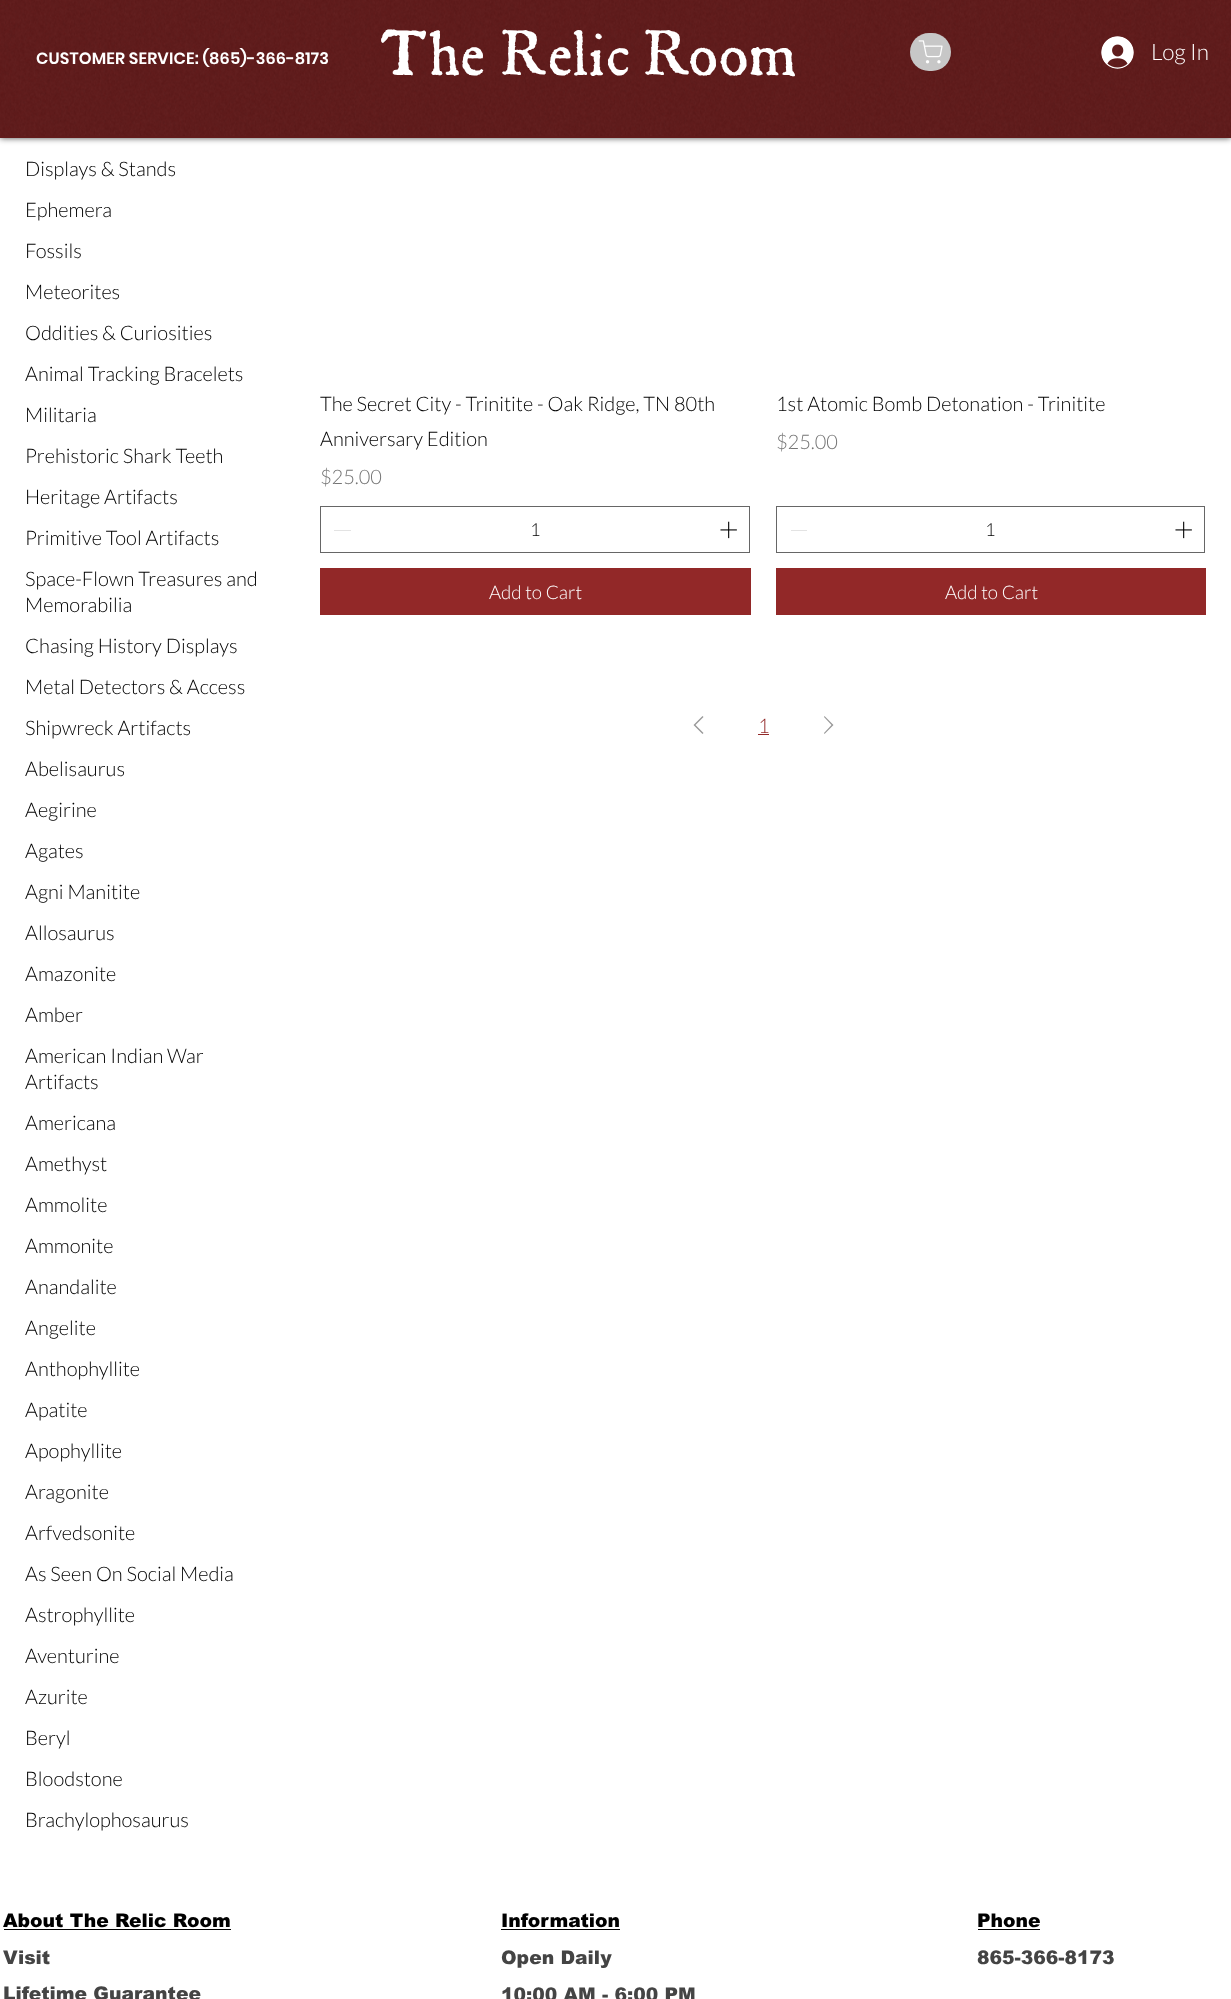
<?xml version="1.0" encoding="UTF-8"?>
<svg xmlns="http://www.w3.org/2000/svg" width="1231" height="1999">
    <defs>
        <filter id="blur1" x="-50%" y="-200%" width="200%" height="500%"><feGaussianBlur stdDeviation="3"/></filter>
    </defs>
    <rect width="100%" height="100%" fill="#FFFFFF"/>
    <rect x="0" y="0" width="1231" height="138" fill="#000000" fill-opacity="0.7" filter="url(#blur1)"/>
    <rect x="0" y="0" width="1231" height="138" fill="#611B1B"/>
    <image x="0" y="0" width="1231" height="136" href="img_01.png"/>
    <text x="36" y="64" font-family="Poppins" font-size="16.25" font-weight="600" letter-spacing="0.15" fill="#FFFFFF">CUSTOMER SERVICE: (865)-366-8173</text>
    <text x="381" y="75" word-spacing="1" font-family="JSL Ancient" font-size="68.75" letter-spacing="2" fill="#FFFFFF">The Relic Room</text>
    <rect x="910" y="33" width="41" height="38" rx="19" fill="#C7C7C7"/>
    <image x="918" y="40" width="25" height="24" href="img_02.png"/>
    <image x="1101" y="36" width="33" height="33" href="img_03.png"/>
    <text x="1151" y="60" font-family="Lato" font-size="22.5" font-weight="300" fill="#FFFFFF">Log In</text>
    <text x="25" y="176" font-family="Lato" font-size="20" font-weight="300" fill="#000000">Displays &amp; Stands</text>
    <text x="25" y="217" font-family="Lato" font-size="20" font-weight="300" fill="#000000">Ephemera</text>
    <text x="25" y="258" font-family="Lato" font-size="20" font-weight="300" fill="#000000">Fossils</text>
    <text x="25" y="299" font-family="Lato" font-size="20" font-weight="300" fill="#000000">Meteorites</text>
    <text x="25" y="340" font-family="Lato" font-size="20" font-weight="300" fill="#000000">Oddities &amp; Curiosities</text>
    <text x="25" y="381" font-family="Lato" font-size="20" font-weight="300" fill="#000000">Animal Tracking Bracelets</text>
    <text x="25" y="422" font-family="Lato" font-size="20" font-weight="300" fill="#000000">Militaria</text>
    <text x="25" y="463" font-family="Lato" font-size="20" font-weight="300" fill="#000000">Prehistoric Shark Teeth</text>
    <text x="25" y="504" font-family="Lato" font-size="20" font-weight="300" fill="#000000">Heritage Artifacts</text>
    <text x="25" y="545" font-family="Lato" font-size="20" font-weight="300" fill="#000000">Primitive Tool Artifacts</text>
    <text font-family="Lato" font-size="20" font-weight="300" fill="#000000">
        <tspan x="25" y="586">Space-Flown Treasures and</tspan>
        <tspan x="25" y="612">Memorabilia</tspan>
    </text>
    <text x="25" y="653" font-family="Lato" font-size="20" font-weight="300" fill="#000000">Chasing History Displays</text>
    <text x="25" y="694" font-family="Lato" font-size="20" font-weight="300" fill="#000000">Metal Detectors &amp; Access</text>
    <text x="25" y="735" font-family="Lato" font-size="20" font-weight="300" fill="#000000">Shipwreck Artifacts</text>
    <text x="25" y="776" font-family="Lato" font-size="20" font-weight="300" fill="#000000">Abelisaurus</text>
    <text x="25" y="817" font-family="Lato" font-size="20" font-weight="300" fill="#000000">Aegirine</text>
    <text x="25" y="858" font-family="Lato" font-size="20" font-weight="300" fill="#000000">Agates</text>
    <text x="25" y="899" font-family="Lato" font-size="20" font-weight="300" fill="#000000">Agni Manitite</text>
    <text x="25" y="940" font-family="Lato" font-size="20" font-weight="300" fill="#000000">Allosaurus</text>
    <text x="25" y="981" font-family="Lato" font-size="20" font-weight="300" fill="#000000">Amazonite</text>
    <text x="25" y="1022" font-family="Lato" font-size="20" font-weight="300" fill="#000000">Amber</text>
    <text font-family="Lato" font-size="20" font-weight="300" fill="#000000">
        <tspan x="25" y="1063">American Indian War</tspan>
        <tspan x="25" y="1089">Artifacts</tspan>
    </text>
    <text x="25" y="1130" font-family="Lato" font-size="20" font-weight="300" fill="#000000">Americana</text>
    <text x="25" y="1171" font-family="Lato" font-size="20" font-weight="300" fill="#000000">Amethyst</text>
    <text x="25" y="1212" font-family="Lato" font-size="20" font-weight="300" fill="#000000">Ammolite</text>
    <text x="25" y="1253" font-family="Lato" font-size="20" font-weight="300" fill="#000000">Ammonite</text>
    <text x="25" y="1294" font-family="Lato" font-size="20" font-weight="300" fill="#000000">Anandalite</text>
    <text x="25" y="1335" font-family="Lato" font-size="20" font-weight="300" fill="#000000">Angelite</text>
    <text x="25" y="1376" font-family="Lato" font-size="20" font-weight="300" fill="#000000">Anthophyllite</text>
    <text x="25" y="1417" font-family="Lato" font-size="20" font-weight="300" fill="#000000">Apatite</text>
    <text x="25" y="1458" font-family="Lato" font-size="20" font-weight="300" fill="#000000">Apophyllite</text>
    <text x="25" y="1499" font-family="Lato" font-size="20" font-weight="300" fill="#000000">Aragonite</text>
    <text x="25" y="1540" font-family="Lato" font-size="20" font-weight="300" fill="#000000">Arfvedsonite</text>
    <text x="25" y="1581" font-family="Lato" font-size="20" font-weight="300" fill="#000000">As Seen On Social Media</text>
    <text x="25" y="1622" font-family="Lato" font-size="20" font-weight="300" fill="#000000">Astrophyllite</text>
    <text x="25" y="1663" font-family="Lato" font-size="20" font-weight="300" fill="#000000">Aventurine</text>
    <text x="25" y="1704" font-family="Lato" font-size="20" font-weight="300" fill="#000000">Azurite</text>
    <text x="25" y="1745" font-family="Lato" font-size="20" font-weight="300" fill="#000000">Beryl</text>
    <text x="25" y="1786" font-family="Lato" font-size="20" font-weight="300" fill="#000000">Bloodstone</text>
    <text x="25" y="1827" font-family="Lato" font-size="20" font-weight="300" fill="#000000">Brachylophosaurus</text>
    <text font-family="Lato" font-size="20" font-weight="300" fill="#000000">
        <tspan x="320" y="411">The Secret City - Trinitite - Oak Ridge, TN 80th</tspan>
        <tspan x="320" y="446">Anniversary Edition</tspan>
    </text>
    <text x="320" y="484" font-family="Lato" font-size="20" font-weight="300" fill="#757575">$25.00</text>
    <rect x="320.5" y="506.5" width="429" height="46" fill="none" stroke="#666666"/>
    <rect x="334" y="530" width="17" height="1" fill="#E3E3E3"/>
    <text x="530" y="536" font-family="Lato" font-size="18" font-weight="300" fill="#000000">1</text>
    <image x="720" y="521" width="17" height="18" href="img_04.png"/>
    <rect x="320" y="568" width="431" height="47" fill="#922828"/>
    <text x="489" y="599" font-family="Lato" font-size="18.75" font-weight="300" fill="#FFFFFF">Add to Cart</text>
    <text x="776" y="411" font-family="Lato" font-size="20" font-weight="300" fill="#000000">1st Atomic Bomb Detonation - Trinitite</text>
    <text x="776" y="449" font-family="Lato" font-size="20" font-weight="300" fill="#757575">$25.00</text>
    <rect x="776.5" y="506.5" width="428" height="46" fill="none" stroke="#666666"/>
    <rect x="791" y="530" width="16" height="1" fill="#E3E3E3"/>
    <text x="985" y="536" font-family="Lato" font-size="18" font-weight="300" fill="#000000">1</text>
    <image x="1175" y="521" width="17" height="18" href="img_04.png"/>
    <rect x="776" y="568" width="430" height="47" fill="#922828"/>
    <text x="945" y="599" font-family="Lato" font-size="18.75" font-weight="300" fill="#FFFFFF">Add to Cart</text>
    <path d="M 702.5 716 L 703.5 717 L 695.5 725 L 703.5 733 L 702.5 734 L 693.5 725 Z" fill="#999999" fill-rule="evenodd"/>
    <text x="758" y="733" font-family="Lato" font-size="20" font-weight="300" fill="#922828">1</text>
    <rect x="758" y="734" width="11" height="1" fill="#922828"/>
    <path d="M 824.5 716 L 833.5 725 L 824.5 734 L 824 733 L 831.5 725 L 824 717 Z" fill="#999999" fill-rule="evenodd"/>
    <text x="3" y="1927" font-family="arial" font-size="18.75" font-weight="900" fill="#000000">About The Relic Room</text>
    <rect x="4" y="1929" width="227" height="1" fill="#000000"/>
    <text x="501" y="1927" font-family="arial" font-size="18.75" font-weight="900" fill="#000000">Information</text>
    <rect x="501" y="1929" width="119" height="1" fill="#000000"/>
    <text x="977" y="1927" font-family="arial" font-size="18.75" font-weight="900" fill="#000000">Phone</text>
    <rect x="978" y="1929" width="62" height="1" fill="#000000"/>
    <text x="3" y="1964" font-family="arial" font-size="18.75" font-weight="900" fill="#444444">Visit</text>
    <text x="501" y="1964" font-family="arial" font-size="18.75" font-weight="900" fill="#444444">Open Daily</text>
    <text x="977" y="1964" font-family="arial" font-size="18.75" font-weight="900" fill="#444444">865-366-8173</text>
    <text x="3" y="2000" font-family="arial" font-size="18.75" font-weight="900" fill="#444444">Lifetime Guarantee</text>
    <text x="501" y="2001" font-family="arial" font-size="18.75" font-weight="900" fill="#444444">10:00 AM - 6:00 PM</text>
</svg>
